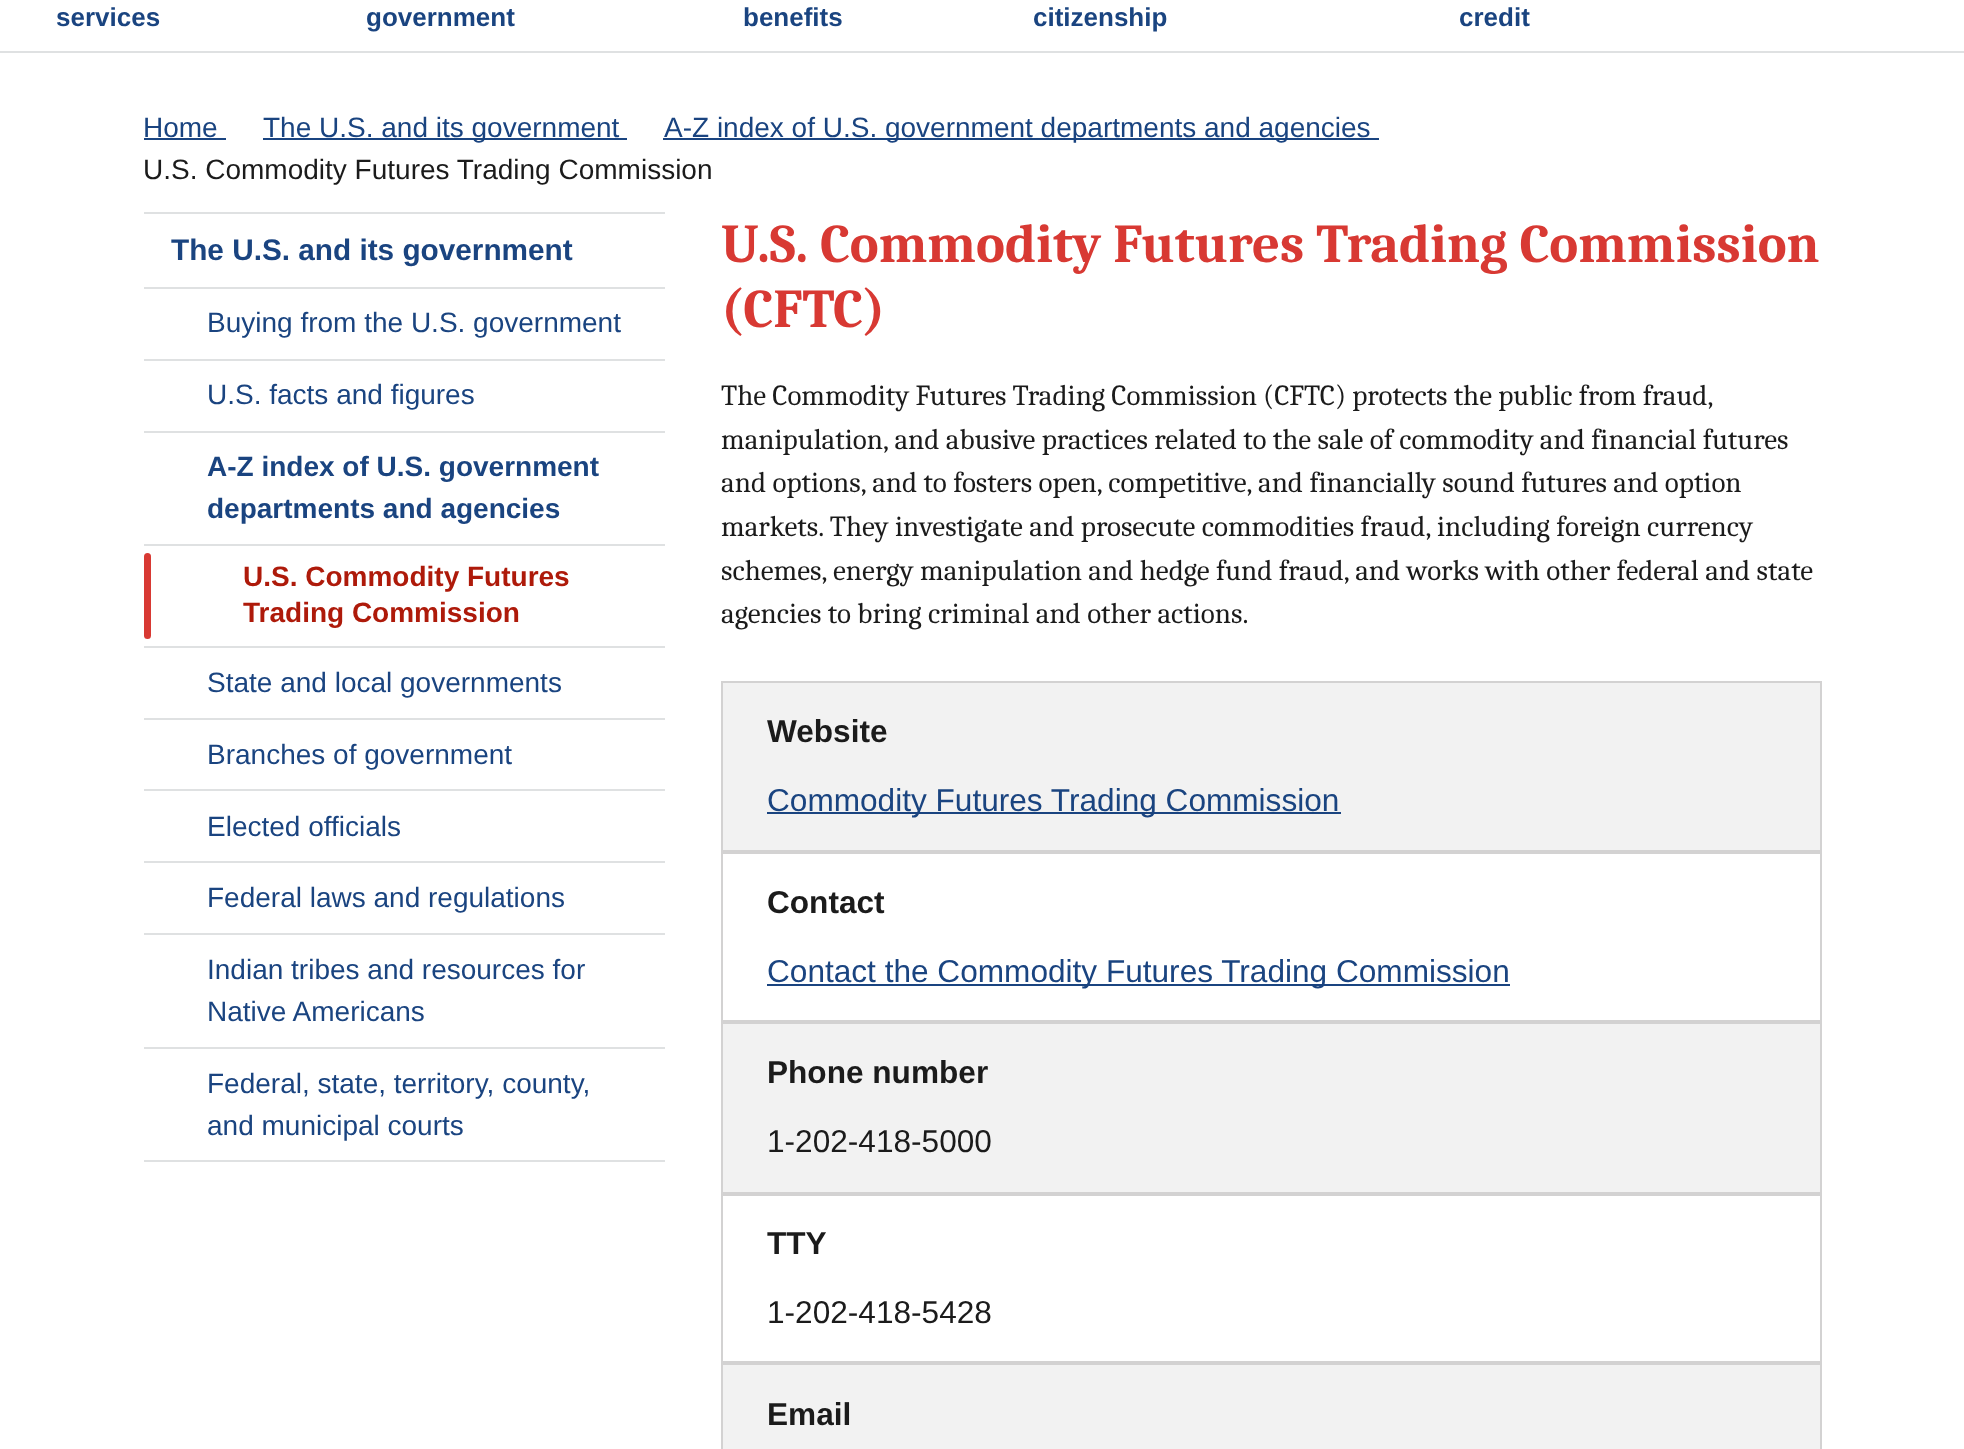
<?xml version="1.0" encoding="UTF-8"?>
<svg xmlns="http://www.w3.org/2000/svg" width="1964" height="1449">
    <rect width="100%" height="100%" fill="#FFFFFF"/>
    <text x="56" y="26" font-family="Liberation Sans" font-size="26" font-weight="700" fill="#1A4480">services</text>
    <text x="366" y="26" font-family="Liberation Sans" font-size="26" font-weight="700" fill="#1A4480">government</text>
    <text x="743" y="26" font-family="Liberation Sans" font-size="26" font-weight="700" fill="#1A4480">benefits</text>
    <text x="1033" y="26" font-family="Liberation Sans" font-size="26" font-weight="700" fill="#1A4480">citizenship</text>
    <text x="1459" y="26" font-family="Liberation Sans" font-size="26" font-weight="700" fill="#1A4480">credit</text>
    <rect x="0" y="51" width="1964" height="2" fill="#DFE1E2"/>
    <text x="143" y="137" font-family="Liberation Sans" font-size="28" fill="#1A4480">Home</text>
    <rect x="144" y="138" width="82" height="2" fill="#1A4480"/>
    <rect x="263" y="138" width="364" height="2" fill="#1A4480"/>
    <text x="263" y="137" font-family="Liberation Sans" font-size="28" fill="#1A4480">The U.S. and its government</text>
    <rect x="663" y="138" width="716" height="2" fill="#1A4480"/>
    <text x="664" y="137" font-family="Liberation Sans" font-size="28" fill="#1A4480">A-Z index of U.S. government departments and agencies</text>
    <text x="143" y="179" font-family="Liberation Sans" font-size="28" fill="#1B1B1B">U.S. Commodity Futures Trading Commission</text>
    <rect x="144" y="1160" width="521" height="2" fill="#DFE1E2"/>
    <rect x="144" y="212" width="521" height="2" fill="#DFE1E2"/>
    <text x="171" y="260" font-family="Liberation Sans" font-size="29.75" font-weight="700" fill="#1A4480">The U.S. and its government</text>
    <rect x="144" y="287" width="521" height="2" fill="#DFE1E2"/>
    <text x="207" y="332" font-family="Liberation Sans" font-size="28" fill="#1A4480">Buying from the U.S. government</text>
    <rect x="144" y="359" width="521" height="2" fill="#DFE1E2"/>
    <text x="207" y="404" font-family="Liberation Sans" font-size="28" fill="#1A4480">U.S. facts and figures</text>
    <rect x="144" y="431" width="521" height="2" fill="#DFE1E2"/>
    <text font-family="Liberation Sans" font-size="28" font-weight="700" fill="#1A4480">
        <tspan x="207" y="476">A-Z index of U.S. government</tspan>
        <tspan x="207" y="518">departments and agencies</tspan>
    </text>
    <rect x="144" y="544" width="521" height="2" fill="#DFE1E2"/>
    <rect x="144" y="553" width="7" height="86" rx="3.5" fill="#D83933"/>
    <text font-family="Liberation Sans" font-size="28" font-weight="700" fill="#AE1A0A">
        <tspan x="243" y="586">U.S. Commodity Futures</tspan>
        <tspan x="243" y="622">Trading Commission</tspan>
    </text>
    <rect x="144" y="646" width="521" height="2" fill="#DFE1E2"/>
    <text x="207" y="692" font-family="Liberation Sans" font-size="28" fill="#1A4480">State and local governments</text>
    <rect x="144" y="718" width="521" height="2" fill="#DFE1E2"/>
    <text x="207" y="764" font-family="Liberation Sans" font-size="28" fill="#1A4480">Branches of government</text>
    <rect x="144" y="789" width="521" height="2" fill="#DFE1E2"/>
    <text x="207" y="836" font-family="Liberation Sans" font-size="28" fill="#1A4480">Elected officials</text>
    <rect x="144" y="861" width="521" height="2" fill="#DFE1E2"/>
    <text x="207" y="907" font-family="Liberation Sans" font-size="28" fill="#1A4480">Federal laws and regulations</text>
    <rect x="144" y="933" width="521" height="2" fill="#DFE1E2"/>
    <text font-family="Liberation Sans" font-size="28" fill="#1A4480">
        <tspan x="207" y="979">Indian tribes and resources for</tspan>
        <tspan x="207" y="1021">Native Americans</tspan>
    </text>
    <rect x="144" y="1047" width="521" height="2" fill="#DFE1E2"/>
    <text font-family="Liberation Sans" font-size="28" fill="#1A4480">
        <tspan x="207" y="1093">Federal, state, territory, county,</tspan>
        <tspan x="207" y="1135">and municipal courts</tspan>
    </text>
    <text font-family="Caladea" font-size="54.6" font-weight="700" fill="#D83933">
        <tspan x="721" y="262">U.S. Commodity Futures Trading Commission</tspan>
        <tspan x="721" y="327">(CFTC)</tspan>
    </text>
    <text font-family="Caladea" font-size="29.1" fill="#1B1B1B">
        <tspan x="721" y="405" word-spacing="-0.25">The Commodity Futures Trading Commission (CFTC) protects the public from fraud,</tspan>
        <tspan x="721" y="449">manipulation, and abusive practices related to the sale of commodity and financial futures</tspan>
        <tspan x="721" y="492">and options, and to fosters open, competitive, and financially sound futures and option</tspan>
        <tspan x="721" y="536">markets. They investigate and prosecute commodities fraud, including foreign currency</tspan>
        <tspan x="721" y="580">schemes, energy manipulation and hedge fund fraud, and works with other federal and state</tspan>
        <tspan x="721" y="623">agencies to bring criminal and other actions.</tspan>
    </text>
    <rect x="722" y="682" width="1099" height="169" fill="#F2F2F2" stroke="#D3D2D2" stroke-width="2"/>
    <text x="767" y="742" font-family="Liberation Sans" font-size="31.6" font-weight="700" fill="#1B1B1B">Website</text>
    <rect x="767" y="812" width="574" height="2" fill="#1A4480"/>
    <text x="767" y="811" font-family="Liberation Sans" font-size="31.6" fill="#1A4480">Commodity Futures Trading Commission</text>
    <rect x="722" y="853" width="1099" height="168" fill="none" stroke="#D3D2D2" stroke-width="2"/>
    <text x="767" y="913" font-family="Liberation Sans" font-size="31.6" font-weight="700" fill="#1B1B1B">Contact</text>
    <rect x="767" y="984" width="743" height="2" fill="#1A4480"/>
    <text x="767" y="982" font-family="Liberation Sans" font-size="31.6" fill="#1A4480">Contact the Commodity Futures Trading Commission</text>
    <rect x="722" y="1023" width="1099" height="170" fill="#F2F2F2" stroke="#D3D2D2" stroke-width="2"/>
    <text x="767" y="1083" font-family="Liberation Sans" font-size="31.6" font-weight="700" fill="#1B1B1B">Phone number</text>
    <text x="767" y="1152" font-family="Liberation Sans" font-size="31.6" fill="#1B1B1B">1-202-418-5000</text>
    <rect x="722" y="1195" width="1099" height="167" fill="none" stroke="#D3D2D2" stroke-width="2"/>
    <text x="767" y="1254" font-family="Liberation Sans" font-size="31.6" font-weight="700" fill="#1B1B1B">TTY</text>
    <text x="767" y="1323" font-family="Liberation Sans" font-size="31.6" fill="#1B1B1B">1-202-418-5428</text>
    <rect x="722" y="1364" width="1099" height="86" fill="#F2F2F2" stroke="#D3D2D2" stroke-width="2"/>
    <text x="767" y="1425" font-family="Liberation Sans" font-size="31.6" font-weight="700" fill="#1B1B1B">Email</text>
</svg>
